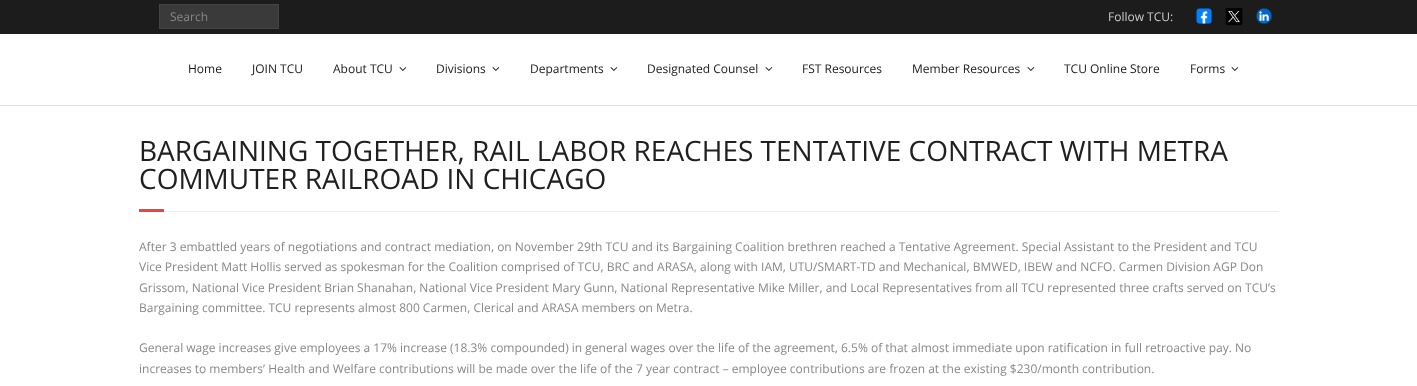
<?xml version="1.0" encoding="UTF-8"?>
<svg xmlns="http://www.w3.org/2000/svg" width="1417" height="386">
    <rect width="100%" height="100%" fill="#FFFFFF"/>
    <rect x="0" y="0" width="1417" height="34" fill="#1C1C1C"/>
    <rect x="159.5" y="4.5" width="119" height="24" fill="#3A3A3A" stroke="#444444"/>
    <text x="170" y="21" font-family="Open Sans" font-size="12" fill="#888888">Search</text>
    <text x="1108" y="21" font-family="Open Sans" font-size="12" fill="#CCCCCC">Follow TCU:</text>
    <image x="1196" y="8" width="16" height="16" href="img_01.png"/>
    <image x="1225" y="8" width="18" height="18" href="img_02.png"/>
    <image x="1256" y="8" width="16" height="16" href="img_03.png"/>
    <rect x="0" y="105" width="1417" height="1" fill="#E0E0E0"/>
    <text x="188" y="73" font-family="Open Sans" font-size="12" fill="#191919">Home</text>
    <text x="252" y="73" font-family="Open Sans" font-size="12" fill="#191919">JOIN TCU</text>
    <text x="333" y="73" font-family="Open Sans" font-size="12" fill="#191919">About TCU</text>
    <image x="399" y="67" width="8" height="4" href="img_04.png"/>
    <text x="436" y="73" font-family="Open Sans" font-size="12" fill="#191919">Divisions</text>
    <image x="492" y="67" width="8" height="4" href="img_04.png"/>
    <text x="530" y="73" font-family="Open Sans" font-size="12" fill="#191919">Departments</text>
    <image x="610" y="67" width="8" height="4" href="img_04.png"/>
    <text x="647" y="73" font-family="Open Sans" font-size="12" fill="#191919">Designated Counsel</text>
    <image x="765" y="67" width="8" height="4" href="img_04.png"/>
    <text x="802" y="73" font-family="Open Sans" font-size="12" fill="#191919">FST Resources</text>
    <text x="912" y="73" font-family="Open Sans" font-size="12" fill="#191919">Member Resources</text>
    <image x="1027" y="67" width="8" height="4" href="img_04.png"/>
    <text x="1064" y="73" font-family="Open Sans" font-size="12" fill="#191919">TCU Online Store</text>
    <text x="1190" y="73" font-family="Open Sans" font-size="12" fill="#191919">Forms</text>
    <image x="1231" y="67" width="8" height="4" href="img_04.png"/>
    <text font-family="Open Sans" font-size="28" fill="#202020">
        <tspan x="139" y="161">BARGAINING TOGETHER, RAIL LABOR REACHES TENTATIVE CONTRACT WITH METRA</tspan>
        <tspan x="139" y="189">COMMUTER RAILROAD IN CHICAGO</tspan>
    </text>
    <rect x="139" y="209" width="25" height="3" fill="#F33F3F"/>
    <rect x="164" y="211" width="1115" height="1" fill="#EEEEEE"/>
    <text font-family="Open Sans" font-size="12" fill="#888888">
        <tspan x="139" y="251">After 3 embattled years of negotiations and contract mediation, on November 29th TCU and its Bargaining Coalition brethren reached a Tentative Agreement. Special Assistant to the President and TCU</tspan>
        <tspan x="139" y="271">Vice President Matt Hollis served as spokesman for the Coalition comprised of TCU, BRC and ARASA, along with IAM, UTU/SMART-TD and Mechanical, BMWED, IBEW and NCFO. Carmen Division AGP Don</tspan>
        <tspan x="139" y="292">Grissom, National Vice President Brian Shanahan, National Vice President Mary Gunn, National Representative Mike Miller, and Local Representatives from all TCU represented three crafts served on TCU’s</tspan>
        <tspan x="139" y="312">Bargaining committee. TCU represents almost 800 Carmen, Clerical and ARASA members on Metra.</tspan>
    </text>
    <text font-family="Open Sans" font-size="12" fill="#888888">
        <tspan x="139" y="352">General wage increases give employees a 17% increase (18.3% compounded) in general wages over the life of the agreement, 6.5% of that almost immediate upon ratification in full retroactive pay. No</tspan>
        <tspan x="139" y="373">increases to members’ Health and Welfare contributions will be made over the life of the 7 year contract – employee contributions are frozen at the existing $230/month contribution.</tspan>
    </text>
</svg>
